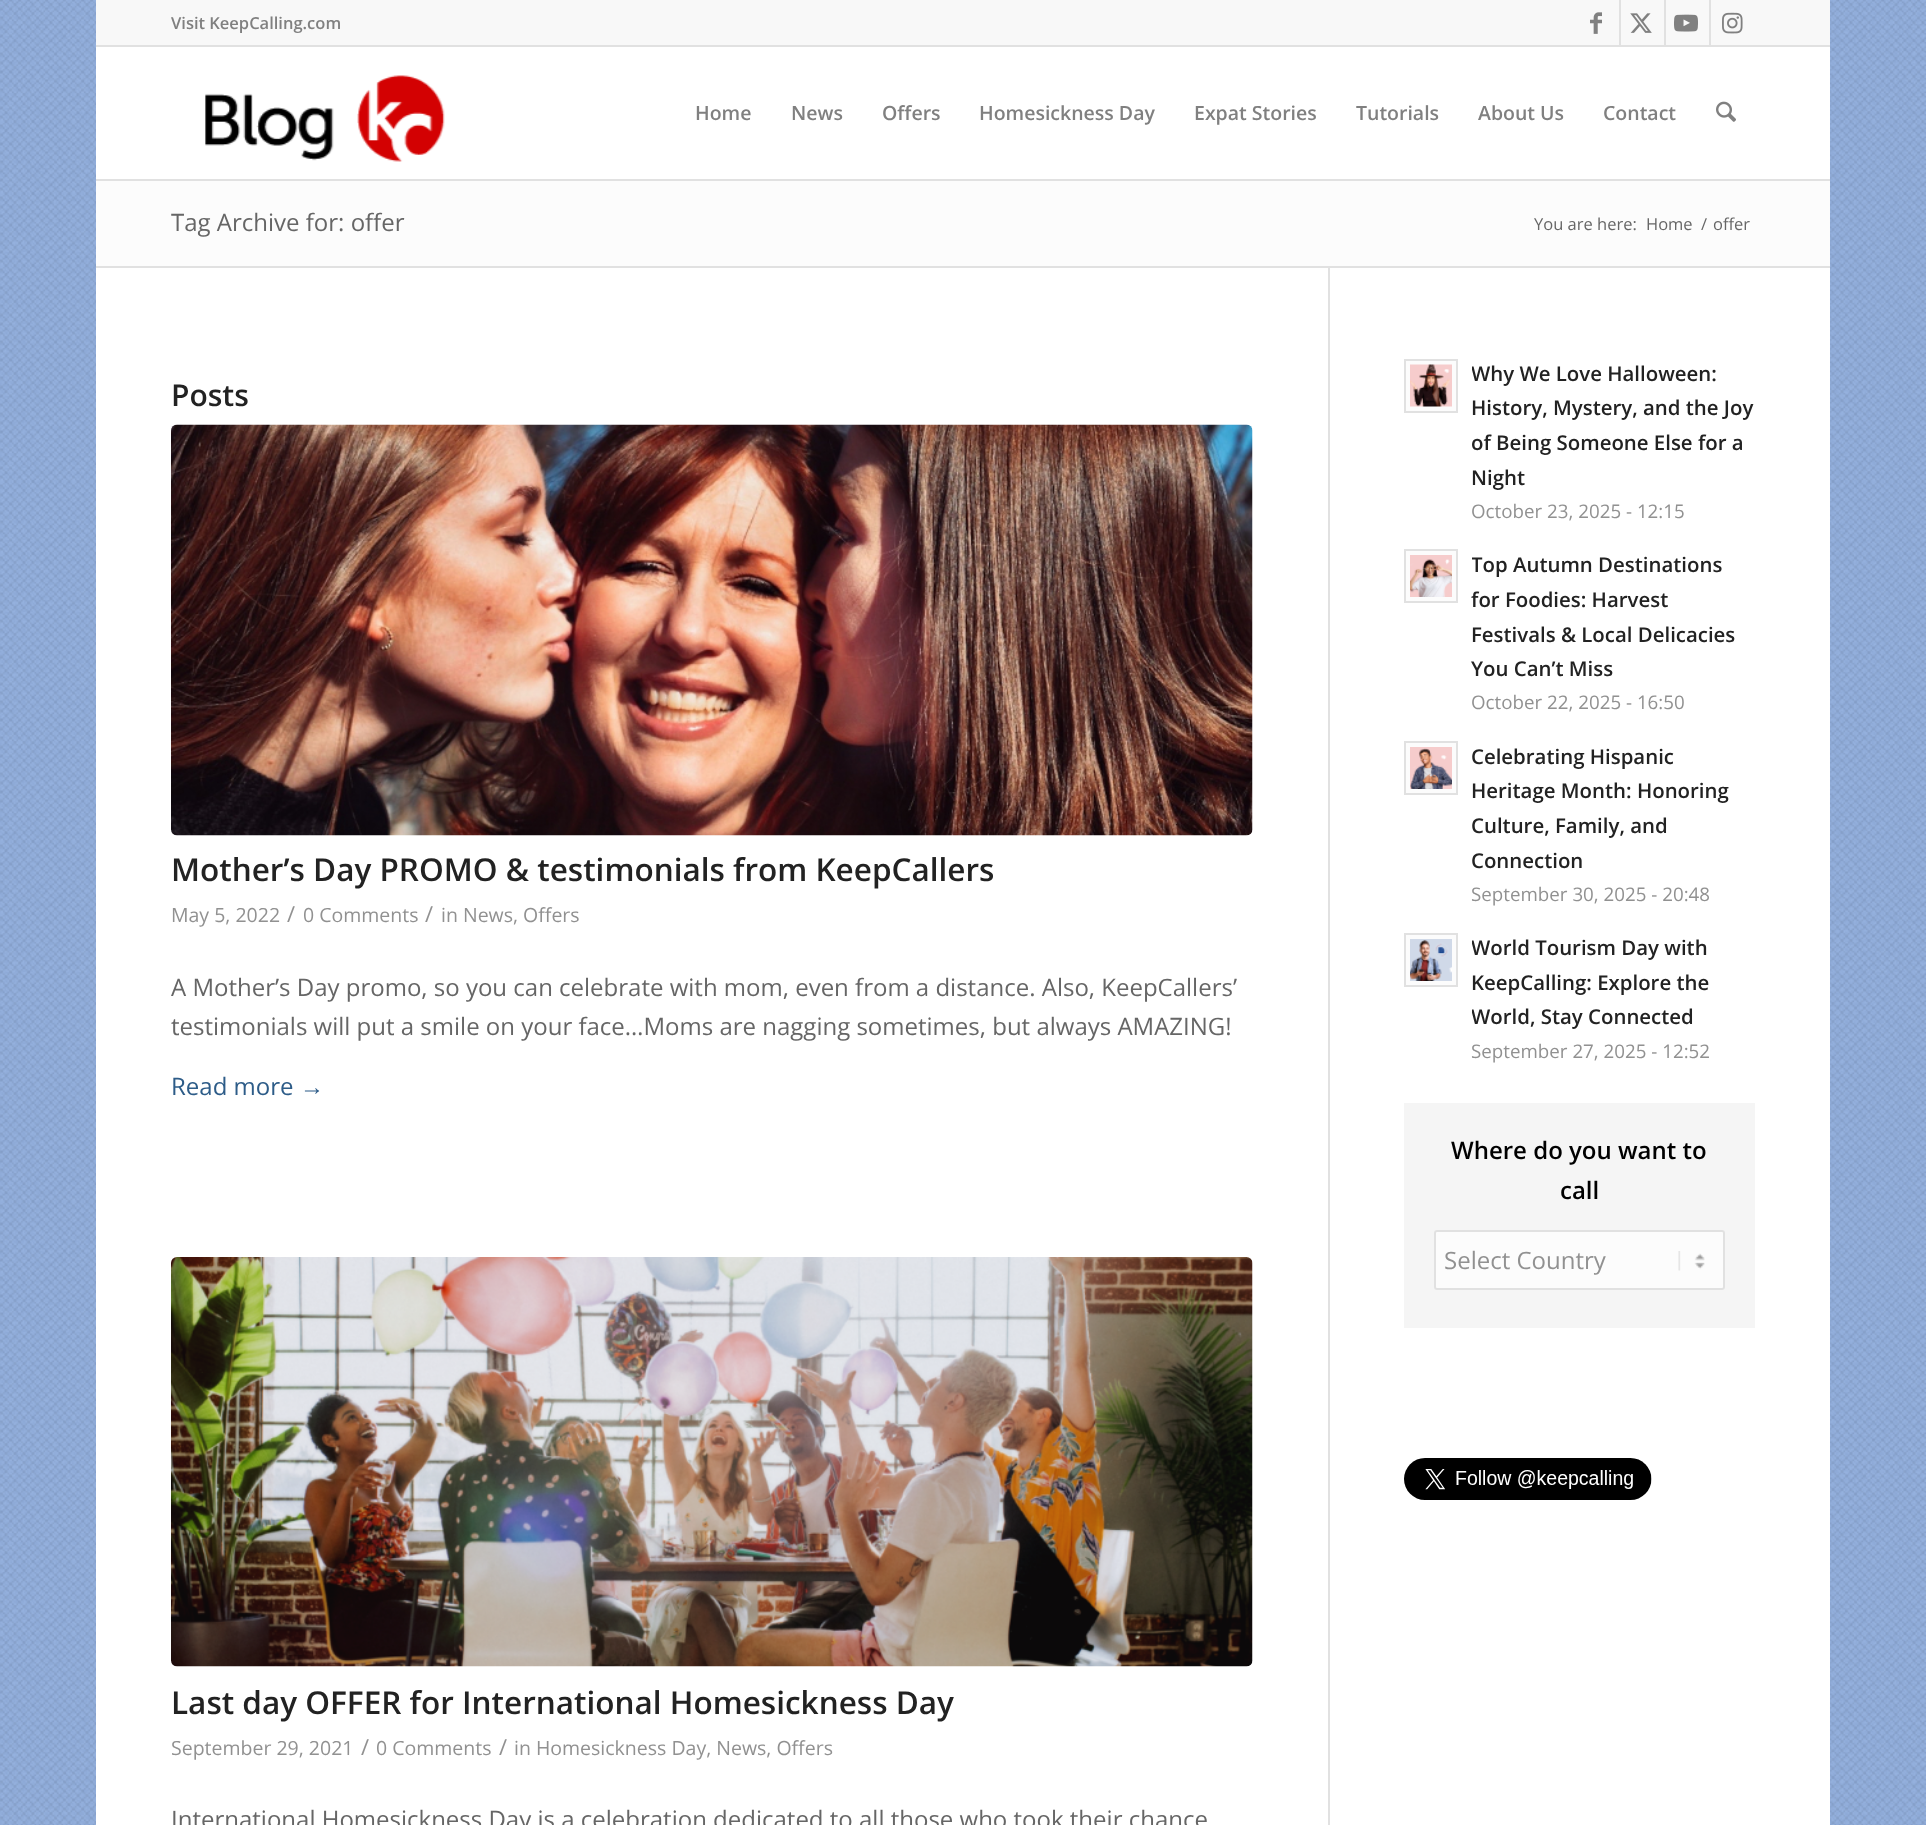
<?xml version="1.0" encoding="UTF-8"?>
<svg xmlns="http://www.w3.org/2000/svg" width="1926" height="1825">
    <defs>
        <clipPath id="clip1"><rect x="1472" y="356" width="283" height="172"/></clipPath>
        <clipPath id="clip2"><rect x="1472" y="546" width="283" height="174"/></clipPath>
        <clipPath id="clip3"><rect x="1472" y="930" width="283" height="138"/></clipPath>
    </defs>
    <rect width="100%" height="100%" fill="#FFFFFF"/>
    <image x="0" y="0" width="1926" height="1825" href="img_01.png"/>
    <rect x="96" y="0" width="1734" height="45" fill="#F8F8F8"/>
    <rect x="96" y="45" width="1734" height="2" fill="#E1E1E1"/>
    <text x="171" y="29" font-family="Open Sans" font-size="16.5" font-weight="600" fill="#808080">Visit KeepCalling.com</text>
    <rect x="1619" y="0" width="2" height="45" fill="#E1E1E1"/>
    <image x="1590" y="12" width="12" height="22" href="img_02.png"/>
    <rect x="1664" y="0" width="2" height="45" fill="#E1E1E1"/>
    <image x="1630" y="13" width="22" height="20" href="img_03.png"/>
    <rect x="1709" y="0" width="2" height="45" fill="#E1E1E1"/>
    <image x="1674" y="14" width="24" height="18" href="img_04.png"/>
    <image x="1722" y="12" width="21" height="22" href="img_05.png"/>
    <rect x="96" y="47" width="1734" height="1778" fill="#FFFFFF"/>
    <rect x="96" y="179" width="1734" height="2" fill="#E1E1E1"/>
    <image x="205" y="75" width="240" height="87" href="img_06.png"/>
    <text x="695" y="120" font-family="Open Sans" font-size="19.5" font-weight="600" fill="#808080">Home</text>
    <text x="791" y="120" font-family="Open Sans" font-size="19.5" font-weight="600" fill="#808080">News</text>
    <text x="882" y="120" font-family="Open Sans" font-size="19.5" font-weight="600" fill="#808080">Offers</text>
    <text x="979" y="120" font-family="Open Sans" font-size="19.5" font-weight="600" fill="#808080">Homesickness Day</text>
    <text x="1194" y="120" font-family="Open Sans" font-size="19.5" font-weight="600" fill="#808080">Expat Stories</text>
    <text x="1356" y="120" font-family="Open Sans" font-size="19.5" font-weight="600" fill="#808080">Tutorials</text>
    <text x="1478" y="120" font-family="Open Sans" font-size="19.5" font-weight="600" fill="#808080">About Us</text>
    <text x="1603" y="120" font-family="Open Sans" font-size="19.5" font-weight="600" fill="#808080">Contact</text>
    <image x="1716" y="101" width="20" height="21" href="img_07.png"/>
    <rect x="96" y="181" width="1734" height="85" fill="#FCFCFC"/>
    <text x="171" y="231" font-family="Open Sans" font-size="24" fill="#666666">Tag Archive for: offer</text>
    <text x="1534" y="230" font-family="Open Sans" font-size="16.5" fill="#666666">You are here:</text>
    <text x="1646" y="230" font-family="Open Sans" font-size="16.5" fill="#666666">Home</text>
    <text x="1701" y="230" font-family="Open Sans" font-size="16.5" fill="#666666">/</text>
    <text x="1713" y="230" font-family="Open Sans" font-size="16.5" fill="#666666">offer</text>
    <rect x="96" y="266" width="1734" height="2" fill="#E1E1E1"/>
    <rect x="1328" y="267" width="2" height="1558" fill="#E1E1E1"/>
    <text x="171" y="406" font-family="Open Sans" font-size="30" font-weight="600" fill="#222222">Posts</text>
    <image x="171" y="424" width="1082" height="412" href="img_08.png"/>
    <text x="171" y="881" font-family="Open Sans" font-size="31.5" font-weight="600" fill="#222222">Mother’s Day PROMO &amp; testimonials from KeepCallers</text>
    <text x="171" y="922" font-family="Open Sans" font-size="19.5" fill="#919191">May 5, 2022</text>
    <text x="287" y="922" font-family="Open Sans" font-size="22" fill="#919191">/</text>
    <text x="303" y="922" font-family="Open Sans" font-size="19.5" fill="#919191">0 Comments</text>
    <text x="425" y="922" font-family="Open Sans" font-size="22" fill="#919191">/</text>
    <text x="441" y="922" font-family="Open Sans" font-size="19.5" fill="#919191">in News, Offers</text>
    <text font-family="Open Sans" font-size="24" fill="#666666">
        <tspan x="171" y="996">A Mother’s Day promo, so you can celebrate with mom, even from a distance. Also, KeepCallers’</tspan>
        <tspan x="171" y="1035">testimonials will put a smile on your face…Moms are nagging sometimes, but always AMAZING!</tspan>
    </text>
    <text x="171" y="1095" font-family="Open Sans" font-size="24" fill="#2D5C88">Read more</text>
    <text x="300" y="1095" font-family="Liberation Sans" font-size="24" fill="#2D5C88">→</text>
    <image x="171" y="1257" width="1082" height="410" href="img_09.png"/>
    <text x="171" y="1714" font-family="Open Sans" font-size="31.5" font-weight="600" fill="#222222">Last day OFFER for International Homesickness Day</text>
    <text x="171" y="1755" font-family="Open Sans" font-size="19.5" fill="#919191">September 29, 2021</text>
    <text x="361" y="1755" font-family="Open Sans" font-size="22" fill="#919191">/</text>
    <text x="376" y="1755" font-family="Open Sans" font-size="19.5" fill="#919191">0 Comments</text>
    <text x="499" y="1755" font-family="Open Sans" font-size="22" fill="#919191">/</text>
    <text x="514" y="1755" font-family="Open Sans" font-size="19.5" fill="#919191">in Homesickness Day, News, Offers</text>
    <text x="171" y="1828" font-family="Open Sans" font-size="24" fill="#666666">International Homesickness Day is a celebration dedicated to all those who took their chance</text>
    <rect x="1405" y="360" width="52" height="52" fill="#FCFCFC" stroke="#E1E1E1" stroke-width="2"/>
    <image x="1410" y="364" width="42" height="43" href="img_10.png"/>
    <g clip-path="url(#clip1)">
        <text x="1471" y="381" font-family="Open Sans" font-size="20.4" font-weight="600" fill="#222222">Why We Love Halloween:</text>
    </g>
    <text font-family="Open Sans" font-size="20.4" font-weight="600" fill="#222222">
        <tspan x="1471" y="415">History, Mystery, and the Joy</tspan>
        <tspan x="1471" y="450">of Being Someone Else for a</tspan>
        <tspan x="1471" y="485">Night</tspan>
    </text>
    <text x="1471" y="518" font-family="Open Sans" font-size="18.75" fill="#919191">October 23, 2025 - 12:15</text>
    <rect x="1405" y="550" width="52" height="52" fill="#FCFCFC" stroke="#E1E1E1" stroke-width="2"/>
    <image x="1410" y="555" width="42" height="42" href="img_11.png"/>
    <g clip-path="url(#clip2)">
        <text x="1471" y="572" font-family="Open Sans" font-size="20.4" font-weight="600" fill="#222222">Top Autumn Destinations</text>
    </g>
    <text font-family="Open Sans" font-size="20.4" font-weight="600" fill="#222222">
        <tspan x="1471" y="607">for Foodies: Harvest</tspan>
        <tspan x="1471" y="642">Festivals &amp; Local Delicacies</tspan>
        <tspan x="1471" y="676">You Can’t Miss</tspan>
    </text>
    <text x="1471" y="709" font-family="Open Sans" font-size="18.75" fill="#919191">October 22, 2025 - 16:50</text>
    <rect x="1405" y="742" width="52" height="52" fill="#FCFCFC" stroke="#E1E1E1" stroke-width="2"/>
    <image x="1410" y="747" width="42" height="42" href="img_12.png"/>
    <text font-family="Open Sans" font-size="20.4" font-weight="600" fill="#222222">
        <tspan x="1471" y="764">Celebrating Hispanic</tspan>
        <tspan x="1471" y="798">Heritage Month: Honoring</tspan>
        <tspan x="1471" y="833">Culture, Family, and</tspan>
        <tspan x="1471" y="868">Connection</tspan>
    </text>
    <text x="1471" y="901" font-family="Open Sans" font-size="18.75" fill="#919191">September 30, 2025 - 20:48</text>
    <rect x="1405" y="934" width="52" height="52" fill="#FCFCFC" stroke="#E1E1E1" stroke-width="2"/>
    <image x="1410" y="939" width="42" height="42" href="img_13.png"/>
    <g clip-path="url(#clip3)">
        <text x="1471" y="955" font-family="Open Sans" font-size="20.4" font-weight="600" fill="#222222">World Tourism Day with</text>
    </g>
    <text x="1471" y="990" font-family="Open Sans" font-size="20.4" font-weight="600" fill="#222222">KeepCalling: Explore the</text>
    <g clip-path="url(#clip3)">
        <text x="1471" y="1024" font-family="Open Sans" font-size="20.4" font-weight="600" fill="#222222">World, Stay Connected</text>
    </g>
    <text x="1471" y="1058" font-family="Open Sans" font-size="18.75" fill="#919191">September 27, 2025 - 12:52</text>
    <rect x="1404" y="1103" width="351" height="225" fill="#F5F5F5"/>
    <text x="1451" y="1159" font-family="Open Sans" font-size="24" font-weight="600" fill="#000000">Where do you want to</text>
    <text x="1560" y="1199" font-family="Open Sans" font-size="24" font-weight="600" fill="#000000">call</text>
    <rect x="1434" y="1230" width="291" height="60" rx="3" fill="#FCFCFC"/>
    <image x="1678" y="1251" width="27" height="20" href="img_14.png"/>
    <rect x="1435" y="1231" width="289" height="58" rx="2" fill="none" stroke="#E1E1E1" stroke-width="2"/>
    <text x="1444" y="1269" font-family="Open Sans" font-size="24" fill="#919191">Select Country</text>
    <image x="1404" y="1458" width="248" height="42" href="img_15.png"/>
</svg>
